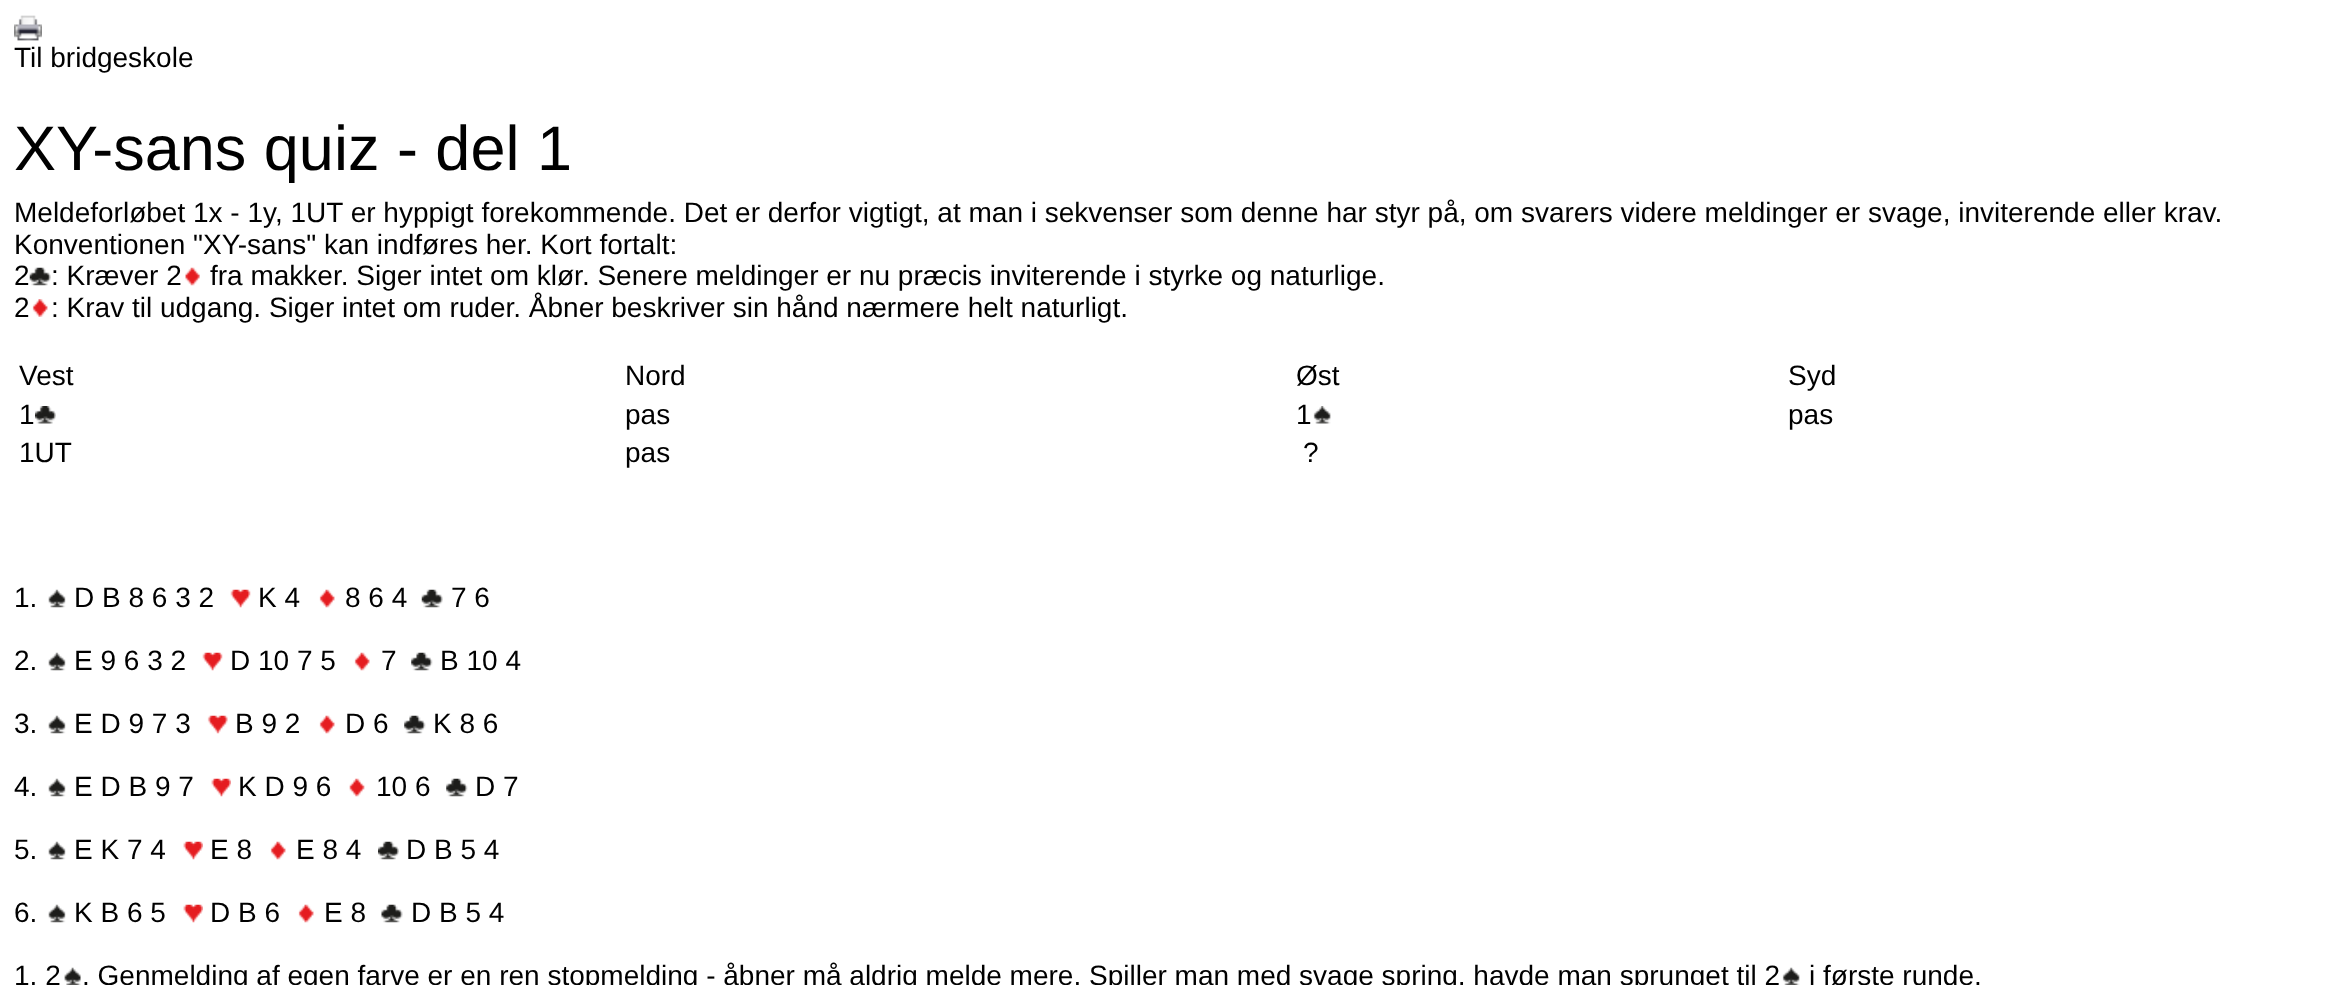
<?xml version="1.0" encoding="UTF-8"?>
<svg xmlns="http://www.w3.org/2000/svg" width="2340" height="985">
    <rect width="100%" height="100%" fill="#FFFFFF"/>
    <image x="14" y="15" width="28" height="26" href="img_01.png"/>
    <text x="14" y="67" font-family="Liberation Sans" font-size="28" fill="#000000">Til bridgeskole</text>
    <text x="14" y="170" font-family="Liberation Sans" font-size="63" fill="#000000">XY-sans quiz - del 1</text>
    <text font-family="Liberation Sans" font-size="28" fill="#000000">
        <tspan x="14" y="222">Meldeforløbet 1x - 1y, 1UT er hyppigt forekommende. Det er derfor vigtigt, at man i sekvenser som denne har styr på, om svarers videre meldinger er svage, inviterende eller krav.</tspan>
        <tspan x="14" y="254">Konventionen "XY-sans" kan indføres her. Kort fortalt:</tspan>
        <tspan x="14" y="285">2</tspan>
    </text>
    <image x="29" y="267" width="22" height="19" href="img_02.png"/>
    <text x="51" y="285" font-family="Liberation Sans" font-size="28" fill="#000000">: Kræver 2</text>
    <image x="185" y="267" width="15" height="19" href="img_03.png"/>
    <text x="210" y="285" font-family="Liberation Sans" font-size="28" fill="#000000">fra makker. Siger intet om klør. Senere meldinger er nu præcis inviterende i styrke og naturlige.</text>
    <text x="14" y="317" font-family="Liberation Sans" font-size="28" fill="#000000">2</text>
    <image x="32" y="299" width="16" height="18" href="img_04.png"/>
    <text x="51" y="317" font-family="Liberation Sans" font-size="28" fill="#000000">: Krav til udgang. Siger intet om ruder. Åbner beskriver sin hånd nærmere helt naturligt.</text>
    <text x="19" y="385" font-family="Liberation Sans" font-size="28" fill="#000000">Vest</text>
    <text x="625" y="385" font-family="Liberation Sans" font-size="28" fill="#000000">Nord</text>
    <text x="1296" y="385" font-family="Liberation Sans" font-size="28" fill="#000000">Øst</text>
    <text x="1788" y="385" font-family="Liberation Sans" font-size="28" fill="#000000">Syd</text>
    <text x="19" y="424" font-family="Liberation Sans" font-size="28" fill="#000000">1</text>
    <image x="35" y="406" width="21" height="18" href="img_05.png"/>
    <text x="625" y="424" font-family="Liberation Sans" font-size="28" fill="#000000">pas</text>
    <text x="1296" y="424" font-family="Liberation Sans" font-size="28" fill="#000000">1</text>
    <image x="1313" y="406" width="18" height="18" href="img_06.png"/>
    <text x="1788" y="424" font-family="Liberation Sans" font-size="28" fill="#000000">pas</text>
    <text x="19" y="462" font-family="Liberation Sans" font-size="28" fill="#000000">1UT</text>
    <text x="625" y="462" font-family="Liberation Sans" font-size="28" fill="#000000">pas</text>
    <text x="1303" y="462" font-family="Liberation Sans" font-size="28" fill="#000000">?</text>
    <text x="14" y="607" font-family="Liberation Sans" font-size="28" fill="#000000">1.</text>
    <image x="48" y="589" width="18" height="19" href="img_07.png"/>
    <text x="74" y="607" font-family="Liberation Sans" font-size="28" fill="#000000">D B 8 6 3 2</text>
    <image x="230" y="589" width="21" height="19" href="img_08.png"/>
    <text x="258" y="607" font-family="Liberation Sans" font-size="28" fill="#000000">K 4</text>
    <image x="319" y="589" width="16" height="19" href="img_09.png"/>
    <text x="345" y="607" font-family="Liberation Sans" font-size="28" fill="#000000">8 6 4</text>
    <image x="421" y="589" width="22" height="19" href="img_02.png"/>
    <text x="451" y="607" font-family="Liberation Sans" font-size="28" fill="#000000">7 6</text>
    <text x="14" y="670" font-family="Liberation Sans" font-size="28" fill="#000000">2.</text>
    <image x="48" y="652" width="18" height="19" href="img_07.png"/>
    <text x="74" y="670" font-family="Liberation Sans" font-size="28" fill="#000000">E 9 6 3 2</text>
    <image x="202" y="652" width="21" height="19" href="img_08.png"/>
    <text x="230" y="670" font-family="Liberation Sans" font-size="28" fill="#000000">D 10 7 5</text>
    <image x="354" y="652" width="16" height="19" href="img_10.png"/>
    <text x="381" y="670" font-family="Liberation Sans" font-size="28" fill="#000000">7</text>
    <image x="411" y="652" width="22" height="19" href="img_11.png"/>
    <text x="440" y="670" font-family="Liberation Sans" font-size="28" fill="#000000">B 10 4</text>
    <text x="14" y="733" font-family="Liberation Sans" font-size="28" fill="#000000">3.</text>
    <image x="48" y="715" width="18" height="19" href="img_07.png"/>
    <text x="74" y="733" font-family="Liberation Sans" font-size="28" fill="#000000">E D 9 7 3</text>
    <image x="207" y="715" width="21" height="19" href="img_12.png"/>
    <text x="235" y="733" font-family="Liberation Sans" font-size="28" fill="#000000">B 9 2</text>
    <image x="319" y="715" width="16" height="19" href="img_09.png"/>
    <text x="345" y="733" font-family="Liberation Sans" font-size="28" fill="#000000">D 6</text>
    <image x="404" y="715" width="22" height="19" href="img_11.png"/>
    <text x="433" y="733" font-family="Liberation Sans" font-size="28" fill="#000000">K 8 6</text>
    <text x="14" y="796" font-family="Liberation Sans" font-size="28" fill="#000000">4.</text>
    <image x="48" y="778" width="18" height="19" href="img_07.png"/>
    <text x="74" y="796" font-family="Liberation Sans" font-size="28" fill="#000000">E D B 9 7</text>
    <image x="211" y="778" width="20" height="19" href="img_13.png"/>
    <text x="238" y="796" font-family="Liberation Sans" font-size="28" fill="#000000">K D 9 6</text>
    <image x="349" y="778" width="16" height="19" href="img_14.png"/>
    <text x="376" y="796" font-family="Liberation Sans" font-size="28" fill="#000000">10 6</text>
    <image x="446" y="778" width="22" height="19" href="img_11.png"/>
    <text x="475" y="796" font-family="Liberation Sans" font-size="28" fill="#000000">D 7</text>
    <text x="14" y="859" font-family="Liberation Sans" font-size="28" fill="#000000">5.</text>
    <image x="48" y="841" width="18" height="19" href="img_07.png"/>
    <text x="74" y="859" font-family="Liberation Sans" font-size="28" fill="#000000">E K 7 4</text>
    <image x="183" y="841" width="20" height="19" href="img_13.png"/>
    <text x="210" y="859" font-family="Liberation Sans" font-size="28" fill="#000000">E 8</text>
    <image x="270" y="841" width="16" height="19" href="img_09.png"/>
    <text x="296" y="859" font-family="Liberation Sans" font-size="28" fill="#000000">E 8 4</text>
    <image x="378" y="841" width="21" height="19" href="img_15.png"/>
    <text x="406" y="859" font-family="Liberation Sans" font-size="28" fill="#000000">D B 5 4</text>
    <text x="14" y="922" font-family="Liberation Sans" font-size="28" fill="#000000">6.</text>
    <image x="48" y="904" width="18" height="19" href="img_07.png"/>
    <text x="74" y="922" font-family="Liberation Sans" font-size="28" fill="#000000">K B 6 5</text>
    <image x="183" y="904" width="20" height="19" href="img_13.png"/>
    <text x="210" y="922" font-family="Liberation Sans" font-size="28" fill="#000000">D B 6</text>
    <image x="298" y="904" width="16" height="19" href="img_09.png"/>
    <text x="324" y="922" font-family="Liberation Sans" font-size="28" fill="#000000">E 8</text>
    <image x="381" y="904" width="22" height="19" href="img_16.png"/>
    <text x="411" y="922" font-family="Liberation Sans" font-size="28" fill="#000000">D B 5 4</text>
    <text x="14" y="985" font-family="Liberation Sans" font-size="28" fill="#000000">1. 2</text>
    <image x="64" y="967" width="17" height="18" href="img_17.png"/>
    <text x="82" y="985" font-family="Liberation Sans" font-size="28" fill="#000000">. Genmelding af egen farve er en ren stopmelding - åbner må aldrig melde mere. Spiller man med svage spring, havde man sprunget til 2</text>
    <image x="1782" y="967" width="18" height="18" href="img_18.png"/>
    <text x="1809" y="985" font-family="Liberation Sans" font-size="28" fill="#000000">i første runde.</text>
</svg>
